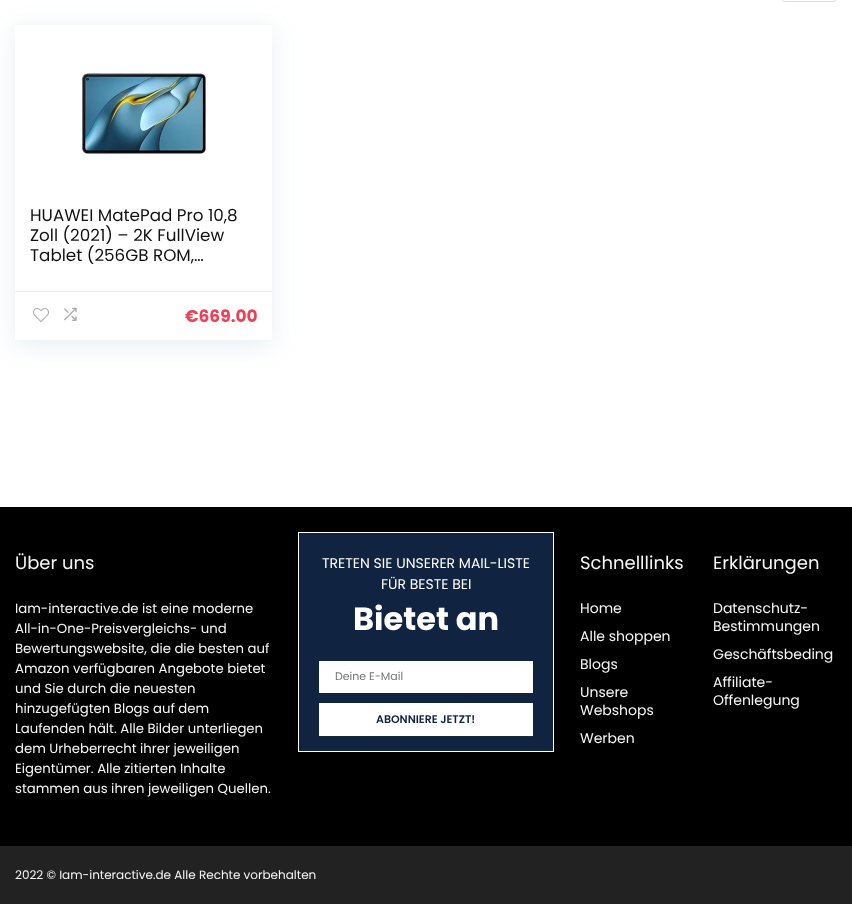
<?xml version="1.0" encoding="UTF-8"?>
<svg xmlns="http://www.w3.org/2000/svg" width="852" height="904">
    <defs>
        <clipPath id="clip1"><path d="M 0 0 H 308 V 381 H 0 Z M 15 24 H 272 V 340 H 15 Z" clip-rule="evenodd"/></clipPath>
        <filter id="blur1" x="-50%" y="-200%" width="200%" height="500%"><feGaussianBlur stdDeviation="11.5"/></filter>
        <filter id="blur2" x="-50%" y="-200%" width="200%" height="500%"><feGaussianBlur stdDeviation="1"/></filter>
    </defs>
    <rect width="100%" height="100%" fill="#FFFFFF"/>
    <rect x="781.5" y="-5.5" width="55" height="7" rx="4.5" fill="none" stroke="#DCE0E0"/>
    <g clip-path="url(#clip1)">
        <rect x="15" y="29" width="257" height="316" fill="#BCCFDB" fill-opacity="0.35" filter="url(#blur1)"/>
    </g>
    <rect x="15" y="24" width="257" height="1" fill="#F8F8F8"/>
    <image x="81" y="72" width="125" height="82" href="img_01.png"/>
    <text font-family="Poppins" font-size="16.75" fill="#111111">
        <tspan x="30" y="221">HUAWEI MatePad Pro 10,8</tspan>
        <tspan x="30" y="241">Zoll (2021) – 2K FullView</tspan>
        <tspan x="30" y="261">Tablet (256GB ROM,…</tspan>
    </text>
    <rect x="15" y="291" width="257" height="1" fill="#F0F0F0"/>
    <image x="33" y="308" width="16" height="14" href="img_02.png"/>
    <image x="64" y="307" width="13" height="14" href="img_03.png"/>
    <text x="185" y="322" font-family="Poppins" font-size="17" font-weight="700" fill="#F04057">€669.00</text>
    <rect x="0" y="507" width="852" height="339" fill="#000000"/>
    <text x="15" y="569" font-family="Poppins" font-size="18" fill="#F5F5F5">Über uns</text>
    <text font-family="Poppins" font-size="13.25" fill="#F5F5F5">
        <tspan x="15" y="613">Iam-interactive.de ist eine moderne</tspan>
        <tspan x="15" y="633">All-in-One-Preisvergleichs- und</tspan>
        <tspan x="15" y="653">Bewertungswebsite, die die besten auf</tspan>
        <tspan x="15" y="673">Amazon verfügbaren Angebote bietet</tspan>
        <tspan x="15" y="693">und Sie durch die neuesten</tspan>
        <tspan x="15" y="713">hinzugefügten Blogs auf dem</tspan>
        <tspan x="15" y="733">Laufenden hält. Alle Bilder unterliegen</tspan>
        <tspan x="15" y="753">dem Urheberrecht ihrer jeweiligen</tspan>
        <tspan x="15" y="773">Eigentümer. Alle zitierten Inhalte</tspan>
        <tspan x="15" y="793">stammen aus ihren jeweiligen Quellen.</tspan>
    </text>
    <rect x="298.5" y="532.5" width="255" height="219" fill="#102341" stroke="#FFFFFF"/>
    <text x="322" y="568" font-family="Poppins" font-size="14" fill="#FFFFFF">TRETEN SIE UNSERER MAIL-LISTE</text>
    <text x="381" y="589" font-family="Poppins" font-size="14" fill="#FFFFFF">FÜR BESTE BEI</text>
    <text x="353" y="630" font-family="Poppins" font-size="32" font-weight="700" fill="#FFFFFF">Bietet an</text>
    <rect x="319" y="661" width="214" height="32" fill="#FFFFFF"/>
    <text x="335" y="680" font-family="Poppins" font-size="11" fill="#757575">Deine E-Mail</text>
    <rect x="319" y="704" width="214" height="33" fill="#3C4043" fill-opacity="0.3" filter="url(#blur2)"/>
    <rect x="319" y="703" width="214" height="33" fill="#FFFFFF"/>
    <text x="376" y="723" font-family="Poppins" font-size="11" font-weight="600" fill="#102341">ABONNIERE JETZT!</text>
    <text x="580" y="569" font-family="Poppins" font-size="18" fill="#F5F5F5">Schnelllinks</text>
    <text x="580" y="613" font-family="Poppins" font-size="14" fill="#F5F5F5">Home</text>
    <text x="580" y="641" font-family="Poppins" font-size="14" fill="#F5F5F5">Alle shoppen</text>
    <text x="580" y="669" font-family="Poppins" font-size="14" fill="#F5F5F5">Blogs</text>
    <text font-family="Poppins" font-size="14" fill="#F5F5F5">
        <tspan x="580" y="697">Unsere</tspan>
        <tspan x="580" y="715">Webshops</tspan>
    </text>
    <text x="580" y="743" font-family="Poppins" font-size="14" fill="#F5F5F5">Werben</text>
    <text x="713" y="569" font-family="Poppins" font-size="18" fill="#F5F5F5">Erklärungen</text>
    <text font-family="Poppins" font-size="14" fill="#F5F5F5">
        <tspan x="713" y="613">Datenschutz-</tspan>
        <tspan x="713" y="631">Bestimmungen</tspan>
    </text>
    <text x="713" y="659" font-family="Poppins" font-size="14" fill="#F5F5F5">Geschäftsbeding</text>
    <text font-family="Poppins" font-size="14" fill="#F5F5F5">
        <tspan x="713" y="687">Affiliate-</tspan>
        <tspan x="713" y="705">Offenlegung</tspan>
    </text>
    <rect x="0" y="846" width="852" height="58" fill="#222222"/>
    <text x="15" y="879" font-family="Poppins" font-size="12" fill="#F5F5F5">2022 © Iam-interactive.de Alle Rechte vorbehalten</text>
</svg>
